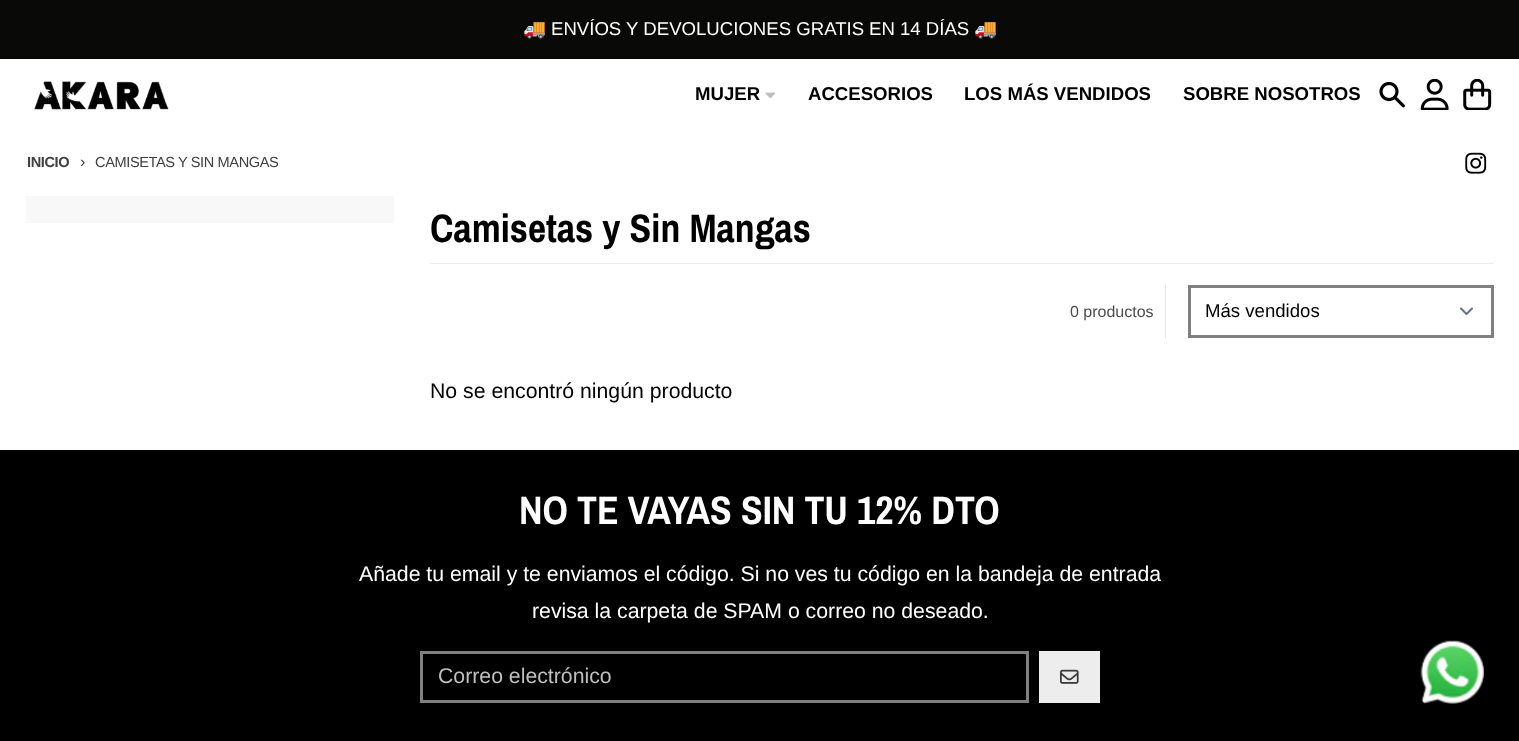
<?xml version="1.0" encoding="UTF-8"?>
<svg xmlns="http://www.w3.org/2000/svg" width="1519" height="741">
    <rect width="100%" height="100%" fill="#000000"/>
    <rect x="0" y="0" width="1519" height="59" fill="#090908"/>
    <text x="523" y="35" font-family="Noto Color Emoji" font-size="18.6" fill="#FFFFFF">🚚</text>
    <text x="551" y="35" font-family="Arimo" font-size="18.6" fill="#FFFFFF">ENVÍOS Y DEVOLUCIONES GRATIS</text>
    <text x="869" y="35" font-family="Arimo" font-size="18.6" fill="#FFFFFF">EN 14 DÍAS</text>
    <text x="974" y="35" font-family="Noto Color Emoji" font-size="18.6" fill="#FFFFFF">🚚</text>
    <rect x="0" y="59" width="1519" height="391" fill="#FFFFFF"/>
    <image x="34" y="81" width="135" height="29" href="img_01.png"/>
    <text x="695" y="100" font-family="Arimo" font-size="18.6" font-weight="700" fill="#000000">MUJER</text>
    <image x="765" y="92" width="11" height="7" href="img_02.png"/>
    <text x="808" y="100" font-family="Arimo" font-size="18.6" font-weight="700" fill="#000000">ACCESORIOS</text>
    <text x="964" y="100" font-family="Arimo" font-size="18.6" font-weight="700" fill="#000000">LOS MÁS VENDIDOS</text>
    <text x="1183" y="100" font-family="Arimo" font-size="18.6" font-weight="700" fill="#000000">SOBRE NOSOTROS</text>
    <image x="1379" y="81" width="26" height="27" href="img_03.png"/>
    <image x="1420" y="79" width="29" height="31" href="img_04.png"/>
    <image x="1463" y="79" width="29" height="31" href="img_05.png"/>
    <text x="27" y="167" font-family="Arimo" font-size="14.6" font-weight="700" letter-spacing="-0.4" fill="#404040">INICIO</text>
    <text x="80" y="167" font-family="Arimo" font-size="16" letter-spacing="-0.4" fill="#404040">›</text>
    <text x="95" y="167" font-family="Arimo" font-size="14.6" letter-spacing="-0.4" fill="#404040">CAMISETAS Y SIN MANGAS</text>
    <image x="1465" y="152" width="22" height="22" href="img_06.png"/>
    <rect x="26" y="196" width="368" height="27" fill="#F8F8F8"/>
    <rect x="430" y="263" width="1064" height="1" fill="#EDEDED"/>
    <text x="430" y="242" font-family="Archivo Narrow" font-size="39.8" font-weight="700" fill="#000000">Camisetas y Sin Mangas</text>
    <text x="1070" y="317" font-family="Arimo" font-size="16" fill="#4D4D4D">0 productos</text>
    <rect x="1165" y="285" width="1" height="53" fill="#E6E6E6"/>
    <path d="M 1461 308.5 L 1466.5 314 L 1472 308.5" fill="none" stroke="#6B7280" stroke-width="2.1" stroke-linecap="round" stroke-linejoin="round"/>
    <rect x="1189.5" y="286.5" width="303" height="50" fill="none" stroke="#808080" stroke-width="3"/>
    <text x="1205" y="317" font-family="Arimo" font-size="18.6" fill="#000000">Más vendidos</text>
    <text x="430" y="398" font-family="Arimo" font-size="21.25" fill="#000000">No se encontró ningún producto</text>
    <text x="519" y="524" font-family="Archivo Narrow" font-size="39.8" font-weight="700" fill="#FFFFFF">NO TE VAYAS SIN TU 12% DTO</text>
    <text x="359" y="581" font-family="Arimo" font-size="21.25" fill="#FFFFFF">Añade tu email y te enviamos el código. Si no ves tu código en la bandeja de entrada</text>
    <text x="532" y="618" font-family="Arimo" font-size="21.25" fill="#FFFFFF">revisa la carpeta de SPAM o correo no deseado.</text>
    <rect x="421.5" y="652.5" width="606" height="49" fill="none" stroke="#808080" stroke-width="3"/>
    <text x="438" y="683" font-family="Arimo" font-size="21.25" fill="#BFBFBF">Correo electrónico</text>
    <rect x="1039" y="651" width="61" height="52" fill="#EDEDED"/>
    <image x="1060" y="669" width="19" height="15" href="img_07.png"/>
    <image x="1420" y="640" width="64" height="64" href="img_08.png"/>
</svg>
